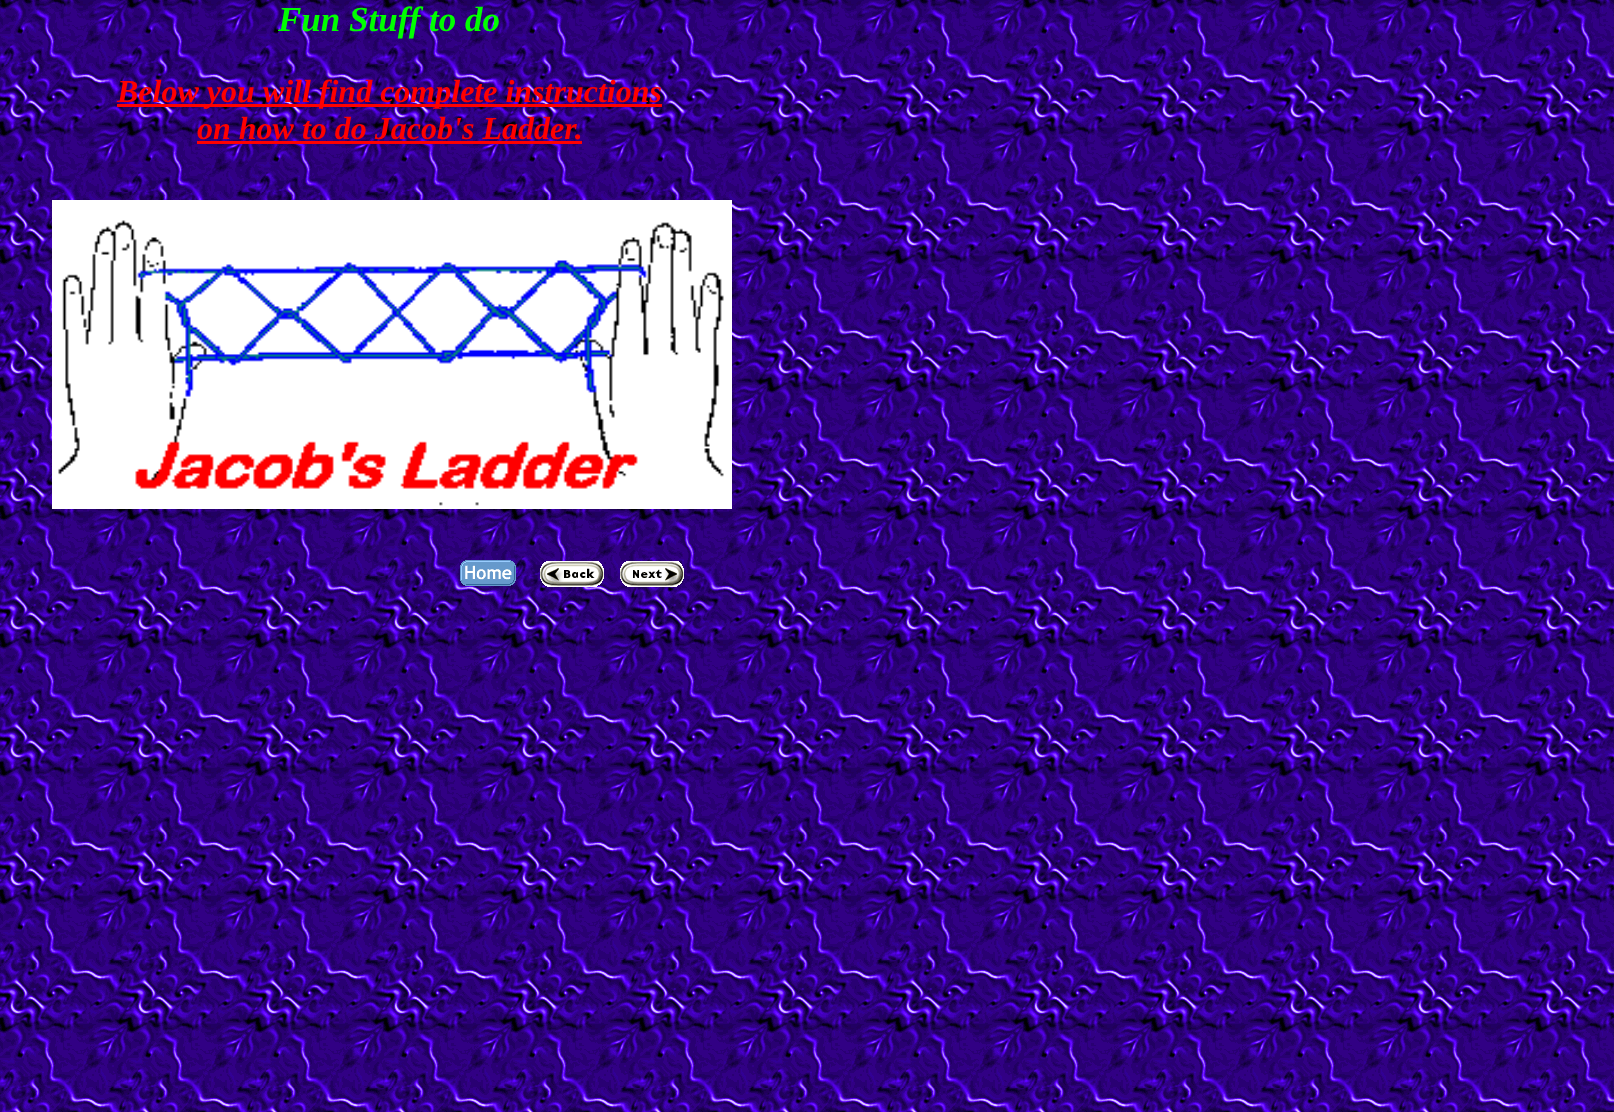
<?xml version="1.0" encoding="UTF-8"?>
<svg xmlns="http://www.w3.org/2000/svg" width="1614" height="1112">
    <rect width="100%" height="100%" fill="#FFFFFF"/>
    <image x="0" y="0" width="1614" height="1112" href="img_01.png"/>
    <text x="278" y="31" font-family="Liberation Serif" font-size="35" font-weight="700" font-style="italic" fill="#00FF00">Fun Stuff to do</text>
    <rect x="117" y="104" width="545" height="3" fill="#FF0000"/>
    <text x="117" y="102" font-family="Liberation Serif" font-size="32" font-weight="700" font-style="italic" fill="#FF0000">Below you will find complete instructions</text>
    <text x="197" y="139" font-family="Liberation Serif" font-size="32" font-weight="700" font-style="italic" fill="#FF0000">on how to do Jacob's Ladder.</text>
    <rect x="197" y="141" width="385" height="3" fill="#FF0000"/>
    <image x="52" y="200" width="680" height="309" href="img_02.png"/>
    <image x="460" y="560" width="56" height="26" href="img_03.png"/>
    <image x="540" y="561" width="64" height="26" href="img_04.png"/>
    <image x="620" y="561" width="64" height="26" href="img_05.png"/>
</svg>
